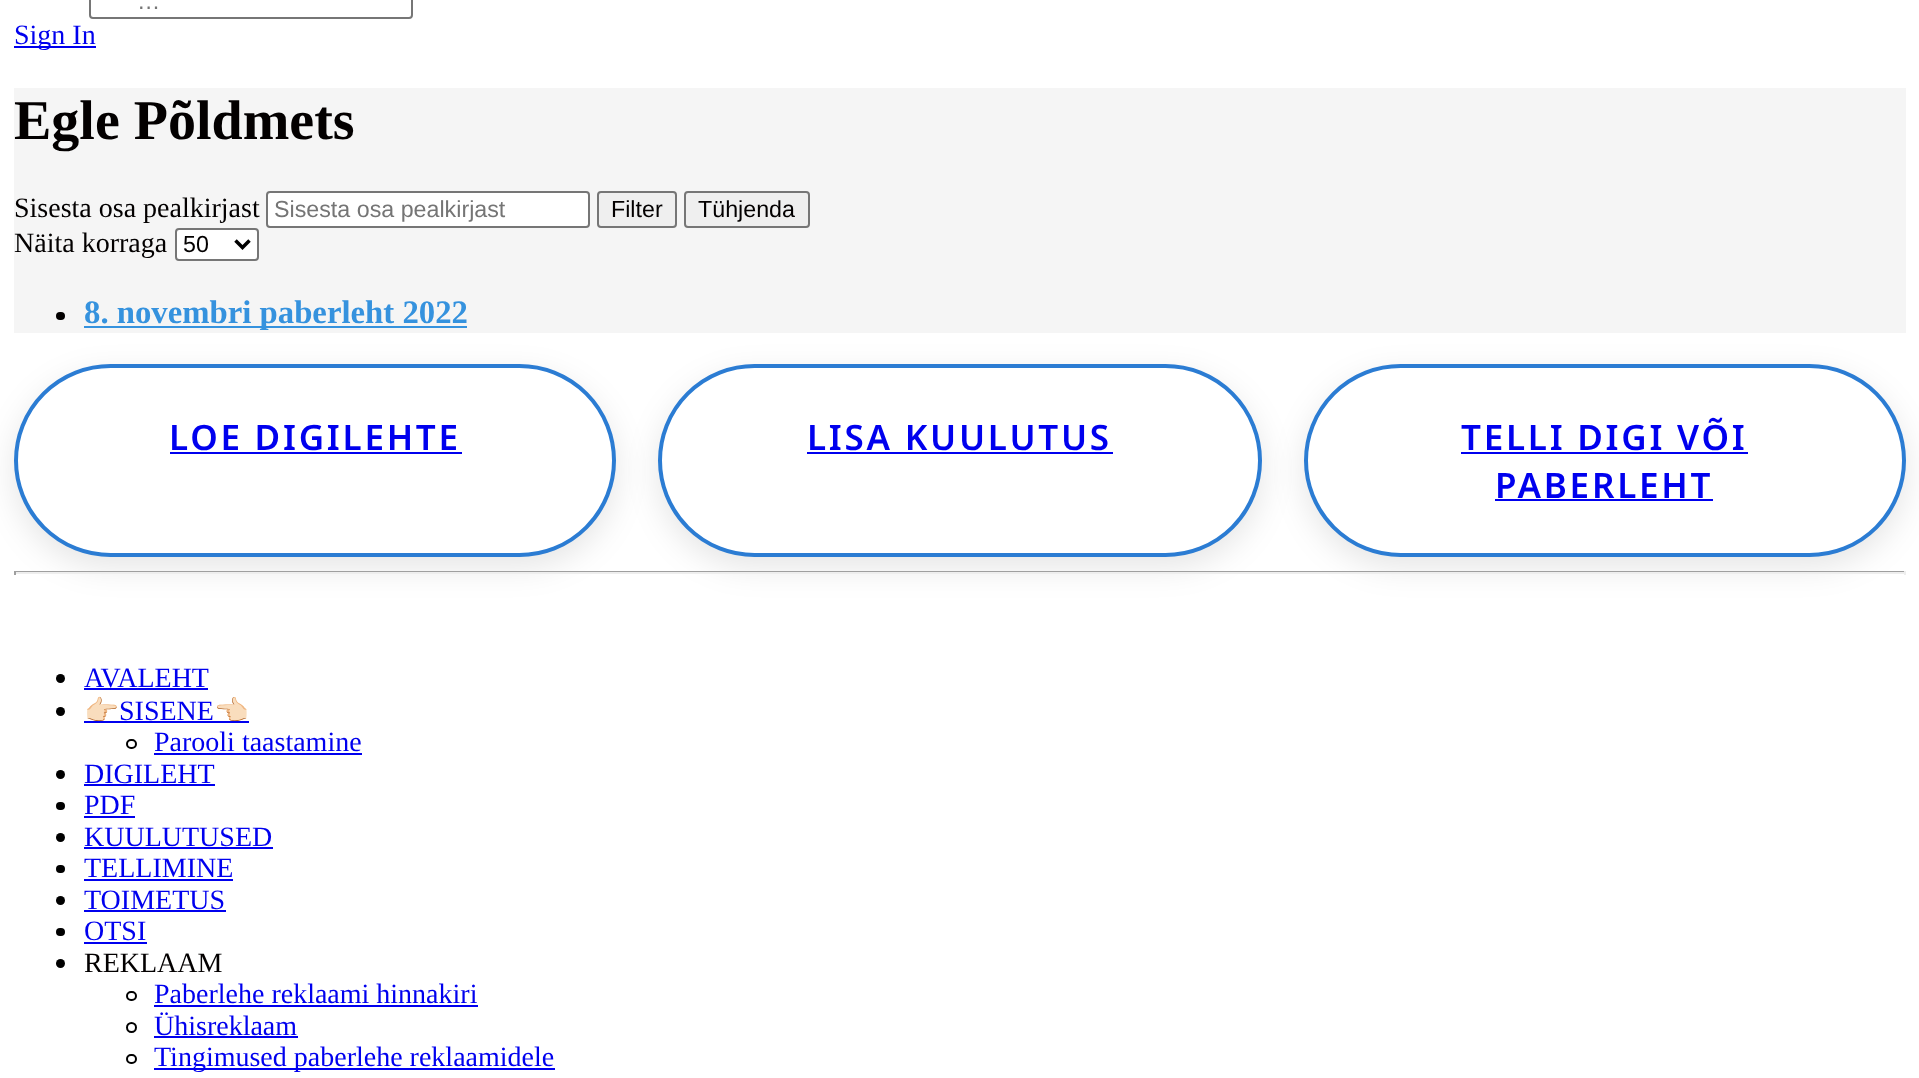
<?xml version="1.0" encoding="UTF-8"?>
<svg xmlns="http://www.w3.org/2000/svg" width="1919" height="1078">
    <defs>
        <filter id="blur1" x="-50%" y="-200%" width="200%" height="500%"><feGaussianBlur stdDeviation="16"/></filter>
    </defs>
    <rect width="100%" height="100%" fill="#FFFFFF"/>
    <rect x="90" y="-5" width="322" height="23" rx="3" fill="none" stroke="#767676" stroke-width="2"/>
    <text x="137" y="9" font-family="Liberation Sans" font-size="23.25" fill="#757575">…</text>
    <rect x="14" y="46" width="82" height="2" fill="#0000EE"/>
    <text x="14" y="44" font-family="Liberation Serif" font-size="28" fill="#0000EE">Sign In</text>
    <rect x="14" y="88" width="1892" height="245" fill="#F5F5F5"/>
    <text x="14" y="139" font-family="Liberation Serif" font-size="56" font-weight="700" fill="#030000">Egle Põldmets</text>
    <text x="14" y="217" font-family="Liberation Serif" font-size="28" fill="#030000">Sisesta osa pealkirjast</text>
    <rect x="267" y="192" width="322" height="35" rx="3" fill="#FFFFFF" stroke="#767676" stroke-width="2"/>
    <text x="274" y="217" font-family="Liberation Sans" font-size="23.25" fill="#757575">Sisesta osa pealkirjast</text>
    <rect x="598" y="192" width="78" height="35" rx="3" fill="#EFEFEF" stroke="#767676" stroke-width="2"/>
    <text x="611" y="217" font-family="Liberation Sans" font-size="23.25" fill="#030000">Filter</text>
    <rect x="685" y="192" width="124" height="35" rx="3" fill="#EFEFEF" stroke="#767676" stroke-width="2"/>
    <text x="698" y="217" font-family="Liberation Sans" font-size="23.25" fill="#030000">Tühjenda</text>
    <text x="14" y="252" font-family="Liberation Serif" font-size="28" fill="#030000">Näita korraga</text>
    <rect x="176" y="229" width="82" height="31" rx="3" fill="#FFFFFF" stroke="#767676" stroke-width="2"/>
    <path d="M 235.5 240.5 L 242.5 247.5 L 249.5 240.5" fill="none" stroke="#000000" stroke-width="3.5"/>
    <text x="183" y="252" font-family="Liberation Sans" font-size="23.25" fill="#030000">50</text>
    <rect x="56" y="312" width="9" height="8" rx="4" fill="#030000"/>
    <rect x="84" y="326" width="383" height="2" fill="#3592DE"/>
    <text x="84" y="323" font-family="Liberation Serif" font-size="32.75" font-weight="700" fill="#3592DE">8. novembri paberleht 2022</text>
    <rect x="14" y="375" width="602" height="192" rx="96" fill="#000000" fill-opacity="0.1" filter="url(#blur1)"/>
    <rect x="16" y="366" width="598" height="189" rx="94.5" fill="#FFFFFF" stroke="#2B7CD3" stroke-width="4"/>
    <text x="169" y="450" font-family="Noto Sans" font-size="35" font-weight="600" letter-spacing="2.75" fill="#0000EE">LOE DIGILEHTE</text>
    <rect x="170" y="452" width="292" height="2" fill="#0000EE"/>
    <rect x="658" y="375" width="604" height="192" rx="96" fill="#000000" fill-opacity="0.1" filter="url(#blur1)"/>
    <rect x="660" y="366" width="600" height="189" rx="94.5" fill="#FFFFFF" stroke="#2B7CD3" stroke-width="4"/>
    <text x="807" y="450" font-family="Noto Sans" font-size="35" font-weight="600" letter-spacing="2.75" fill="#0000EE">LISA KUULUTUS</text>
    <rect x="807" y="452" width="306" height="2" fill="#0000EE"/>
    <rect x="1304" y="375" width="602" height="192" rx="96" fill="#000000" fill-opacity="0.1" filter="url(#blur1)"/>
    <rect x="1306" y="366" width="598" height="189" rx="94.5" fill="#FFFFFF" stroke="#2B7CD3" stroke-width="4"/>
    <text x="1461" y="450" font-family="Noto Sans" font-size="35" font-weight="600" letter-spacing="2.75" fill="#0000EE">TELLI DIGI VÕI</text>
    <rect x="1461" y="452" width="287" height="2" fill="#0000EE"/>
    <text x="1495" y="498" font-family="Noto Sans" font-size="35" font-weight="600" letter-spacing="2.75" fill="#0000EE">PABERLEHT</text>
    <rect x="1495" y="499" width="218" height="2" fill="#0000EE"/>
    <rect x="14" y="571" width="1892" height="1" fill="#9F9F9F"/>
    <rect x="1904" y="571" width="2" height="4" fill="#EEEEEE"/>
    <rect x="14" y="572" width="1892" height="2" fill="#EEEEEE"/>
    <rect x="14" y="571" width="2" height="4" fill="#9F9F9F"/>
    <circle cx="60.5" cy="678.5" r="4.5" fill="#000000"/>
    <text x="84" y="687" font-family="Liberation Serif" font-size="28" fill="#0000EE">AVALEHT</text>
    <rect x="84" y="688" width="124" height="2" fill="#0000EE"/>
    <circle cx="60.5" cy="711.5" r="4.5" fill="#000000"/>
    <rect x="84" y="721" width="165" height="2" fill="#0000EE"/>
    <text x="84" y="720" font-family="Noto Color Emoji" font-size="28" fill="#0000EE">👉🏻</text>
    <text x="119" y="720" font-family="Liberation Serif" font-size="28" fill="#0000EE">SISENE</text>
    <text x="214" y="720" font-family="Noto Color Emoji" font-size="28" fill="#0000EE">👈🏻</text>
    <rect x="127" y="740" width="9" height="8" rx="4" fill="none" stroke="#000000" stroke-width="2"/>
    <text x="154" y="751" font-family="Liberation Serif" font-size="28" fill="#0000EE">Parooli taastamine</text>
    <rect x="154" y="753" width="208" height="2" fill="#0000EE"/>
    <circle cx="60.5" cy="774.5" r="4.5" fill="#000000"/>
    <text x="84" y="783" font-family="Liberation Serif" font-size="28" fill="#0000EE">DIGILEHT</text>
    <rect x="84" y="784" width="131" height="2" fill="#0000EE"/>
    <rect x="56" y="802" width="9" height="8" rx="4" fill="#000000"/>
    <text x="84" y="814" font-family="Liberation Serif" font-size="28" fill="#0000EE">PDF</text>
    <rect x="84" y="816" width="51" height="2" fill="#0000EE"/>
    <circle cx="60.5" cy="837.5" r="4.5" fill="#000000"/>
    <text x="84" y="846" font-family="Liberation Serif" font-size="28" fill="#0000EE">KUULUTUSED</text>
    <rect x="84" y="847" width="189" height="2" fill="#0000EE"/>
    <rect x="56" y="865" width="9" height="8" rx="4" fill="#000000"/>
    <text x="84" y="877" font-family="Liberation Serif" font-size="28" fill="#0000EE">TELLIMINE</text>
    <rect x="84" y="879" width="149" height="2" fill="#0000EE"/>
    <circle cx="60.5" cy="900.5" r="4.5" fill="#000000"/>
    <text x="84" y="909" font-family="Liberation Serif" font-size="28" fill="#0000EE">TOIMETUS</text>
    <rect x="84" y="910" width="142" height="2" fill="#0000EE"/>
    <rect x="56" y="928" width="9" height="8" rx="4" fill="#000000"/>
    <text x="84" y="940" font-family="Liberation Serif" font-size="28" fill="#0000EE">OTSI</text>
    <rect x="84" y="942" width="63" height="2" fill="#0000EE"/>
    <circle cx="60.5" cy="963.5" r="4.5" fill="#000000"/>
    <text x="84" y="972" font-family="Liberation Serif" font-size="28" fill="#030000">REKLAAM</text>
    <rect x="127" y="992" width="9" height="8" rx="4" fill="none" stroke="#000000" stroke-width="2"/>
    <text x="154" y="1003" font-family="Liberation Serif" font-size="28" fill="#0000EE">Paberlehe reklaami hinnakiri</text>
    <rect x="154" y="1005" width="324" height="2" fill="#0000EE"/>
    <circle cx="131.5" cy="1027.5" r="4.5" fill="none" stroke="#000000" stroke-width="2"/>
    <text x="154" y="1035" font-family="Liberation Serif" font-size="28" fill="#0000EE">Ühisreklaam</text>
    <rect x="154" y="1036" width="144" height="2" fill="#0000EE"/>
    <rect x="127" y="1055" width="9" height="8" rx="4" fill="none" stroke="#000000" stroke-width="2"/>
    <rect x="154" y="1068" width="401" height="2" fill="#0000EE"/>
    <text x="154" y="1066" font-family="Liberation Serif" font-size="28" fill="#0000EE">Tingimused paberlehe reklaamidele</text>
</svg>
